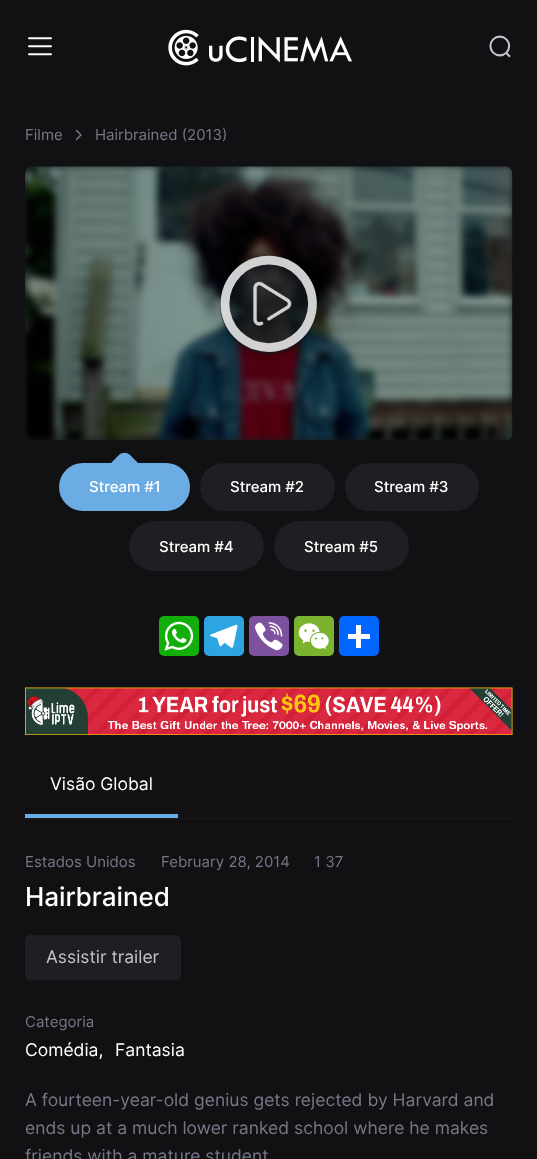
<?xml version="1.0" encoding="UTF-8"?>
<svg xmlns="http://www.w3.org/2000/svg" width="537" height="1159">
    <rect width="100%" height="100%" fill="#111113"/>
    <image x="28" y="37" width="24" height="19" href="img_01.png"/>
    <image x="168" y="29" width="184" height="37" href="img_02.png"/>
    <image x="489" y="35" width="22" height="23" href="img_03.png"/>
    <text x="25" y="140" font-family="Inter" font-size="15" fill="#777788">Filme</text>
    <image x="75" y="129" width="7" height="12" href="img_04.png"/>
    <text x="95" y="140" font-family="Inter" font-size="15" fill="#777788">Hairbrained (2013)</text>
    <image x="25" y="166" width="488" height="274" href="img_05.png"/>
    <path d="M 130 455 L 137 462 C 140 465 140 469.5 137 472.5 L 130 479.5 C 127 482.5 122 482.5 119 479.5 L 112 472.5 C 109 469.5 109 465 112 462 L 119 455 C 122 452 127 452 130 455 Z" fill="#6CACE4"/>
    <rect x="59" y="463" width="131" height="48" rx="24" fill="#6CACE4"/>
    <text x="89" y="492" font-family="Inter" font-size="15" font-weight="500" fill="#FFFFFF">Stream #1</text>
    <rect x="200" y="463" width="135" height="48" rx="24" fill="#1F1F23"/>
    <text x="230" y="492" font-family="Inter" font-size="15" font-weight="500" fill="#FFFFFF">Stream #2</text>
    <rect x="345" y="463" width="134" height="48" rx="24" fill="#1F1F23"/>
    <text x="374" y="492" font-family="Inter" font-size="15" font-weight="500" fill="#FFFFFF">Stream #3</text>
    <rect x="129" y="521" width="135" height="50" rx="25" fill="#1F1F23"/>
    <text x="159" y="552" font-family="Inter" font-size="15" font-weight="500" fill="#FFFFFF">Stream #4</text>
    <rect x="274" y="521" width="135" height="50" rx="25" fill="#1F1F23"/>
    <text x="304" y="552" font-family="Inter" font-size="15" font-weight="500" fill="#FFFFFF">Stream #5</text>
    <rect x="159" y="616" width="40" height="40" rx="5" fill="#12AF0A"/>
    <image x="164" y="621" width="30" height="30" href="img_06.png"/>
    <rect x="204" y="616" width="40" height="40" rx="5" fill="#2CA5E0"/>
    <image x="210" y="624" width="28" height="24" href="img_07.png"/>
    <rect x="249" y="616" width="40" height="40" rx="5" fill="#7C529E"/>
    <image x="255" y="622" width="28" height="29" href="img_08.png"/>
    <rect x="294" y="616" width="40" height="40" rx="5" fill="#7BB32E"/>
    <image x="298" y="623" width="31" height="27" href="img_09.png"/>
    <rect x="339" y="616" width="40" height="40" rx="5" fill="#0166FF"/>
    <rect x="356" y="625" width="5" height="23" fill="#FFFFFF"/>
    <rect x="348" y="634" width="22" height="5" fill="#FFFFFF"/>
    <image x="25" y="687" width="488" height="48" href="img_10.png"/>
    <rect x="25" y="818" width="488" height="1" fill="#1A1A1E"/>
    <text x="50" y="790" font-family="Inter" font-size="17.5" fill="#FFFFFF">Visão Global</text>
    <rect x="25" y="814" width="153" height="4" fill="#6CACE4"/>
    <text x="25" y="867" font-family="Inter" font-size="15" fill="#777788">Estados Unidos</text>
    <text x="161" y="867" font-family="Inter" font-size="15" fill="#777788">February 28, 2014</text>
    <text x="314" y="867" font-family="Inter" font-size="15" fill="#777788">1 37</text>
    <text x="25" y="906" font-family="Inter" font-size="26" font-weight="500" fill="#FFFFFF">Hairbrained</text>
    <rect x="25" y="935" width="156" height="45" rx="5" fill="#1F1F23"/>
    <text x="46" y="963" font-family="Inter" font-size="17.5" fill="#C3C3CB">Assistir trailer</text>
    <text x="25" y="1027" font-family="Inter" font-size="15" fill="#777788">Categoria</text>
    <text x="25" y="1056" font-family="Inter" font-size="17.5" fill="#FFFFFF">Comédia,</text>
    <text x="115" y="1056" font-family="Inter" font-size="17.5" fill="#FFFFFF">Fantasia</text>
    <text font-family="Inter" font-size="17.5" fill="#777788">
        <tspan x="25" y="1106">A fourteen-year-old genius gets rejected by Harvard and</tspan>
        <tspan x="25" y="1134">ends up at a much lower ranked school where he makes</tspan>
        <tspan x="25" y="1162">friends with a mature student</tspan>
    </text>
</svg>
